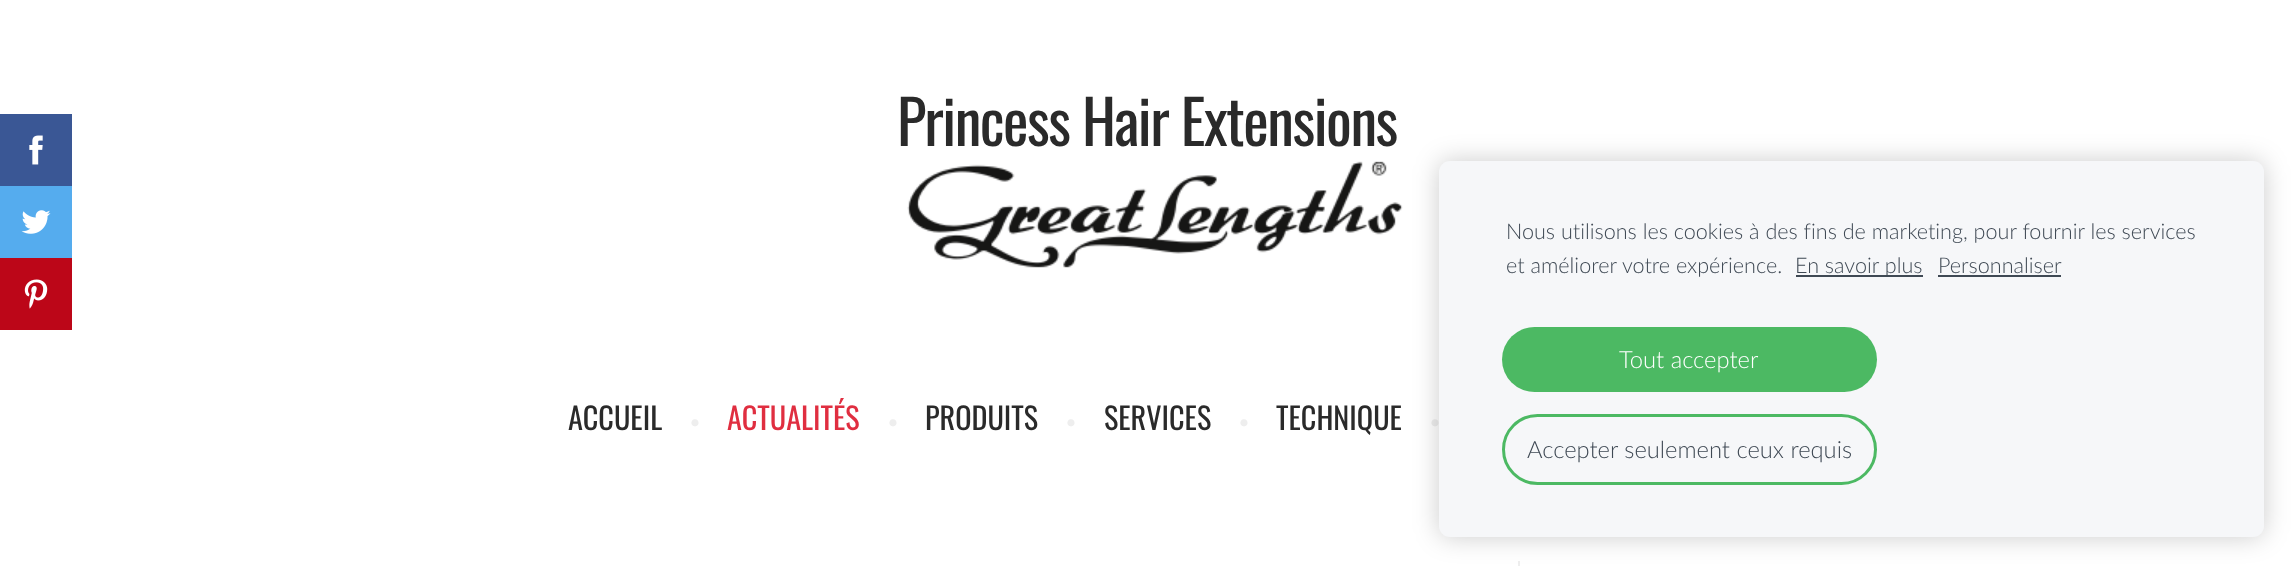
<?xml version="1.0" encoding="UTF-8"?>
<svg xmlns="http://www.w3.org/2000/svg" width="2293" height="566">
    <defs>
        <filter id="blur1" x="-50%" y="-200%" width="200%" height="500%"><feGaussianBlur stdDeviation="13"/></filter>
    </defs>
    <rect width="100%" height="100%" fill="#FFFFFF"/>
    <rect x="0" y="114" width="72" height="72" fill="#3A5795"/>
    <image x="29" y="135" width="14" height="30" href="img_01.png"/>
    <rect x="0" y="186" width="72" height="72" fill="#55ACEE"/>
    <image x="21" y="210" width="30" height="24" href="img_02.png"/>
    <rect x="0" y="258" width="72" height="72" fill="#BC0618"/>
    <image x="24" y="279" width="24" height="30" href="img_03.png"/>
    <text x="897" y="146" font-family="Oswald" font-size="60.75" letter-spacing="-1.5" fill="#2A2A2A">Princess Hair Extensions</text>
    <image x="907" y="161" width="496" height="107" href="img_04.png"/>
    <text x="568" y="430" font-family="Oswald" font-size="30.25" fill="#2A2A2A">ACCUEIL</text>
    <text x="688" y="430" font-family="Lato" font-size="24" font-weight="300" fill="#EEEEEE">•</text>
    <text x="727" y="430" font-family="Oswald" font-size="30.25" fill="#E02E40">ACTUALITÉS</text>
    <text x="886" y="430" font-family="Lato" font-size="24" font-weight="300" fill="#EEEEEE">•</text>
    <text x="925" y="430" font-family="Oswald" font-size="30.25" fill="#2A2A2A">PRODUITS</text>
    <text x="1064" y="430" font-family="Lato" font-size="24" font-weight="300" fill="#EEEEEE">•</text>
    <text x="1104" y="430" font-family="Oswald" font-size="30.25" fill="#2A2A2A">SERVICES</text>
    <text x="1237" y="430" font-family="Lato" font-size="24" font-weight="300" fill="#EEEEEE">•</text>
    <text x="1276" y="430" font-family="Oswald" font-size="30.25" fill="#2A2A2A">TECHNIQUE</text>
    <text x="1428" y="430" font-family="Lato" font-size="24" font-weight="300" fill="#EEEEEE">•</text>
    <rect x="1518" y="561" width="2" height="5" fill="#EEEEEE"/>
    <rect x="1439" y="161" width="825" height="376" rx="11" fill="#000000" fill-opacity="0.2" filter="url(#blur1)"/>
    <rect x="1439" y="161" width="825" height="376" rx="11" fill="#F6F7F9"/>
    <text font-family="Lato" font-size="21.6" font-weight="300" fill="#3F4954">
        <tspan x="1506" y="239">Nous utilisons les cookies à des fins de marketing, pour fournir les services</tspan>
        <tspan x="1506" y="273">et améliorer votre expérience.</tspan>
    </text>
    <rect x="1796" y="275" width="127" height="2" fill="#3F4954"/>
    <text x="1795" y="273" font-family="Lato" font-size="21.6" font-weight="300" fill="#3F4954">En savoir plus</text>
    <text x="1938" y="273" font-family="Lato" font-size="21.6" font-weight="300" fill="#3F4954">Personnaliser</text>
    <rect x="1938" y="275" width="123" height="2" fill="#3F4954"/>
    <rect x="1502" y="327" width="375" height="65" rx="32.5" fill="#4CB963"/>
    <text x="1619" y="368" font-family="Lato" font-size="23.75" font-weight="300" fill="#FFFFFF">Tout accepter</text>
    <rect x="1503.5" y="415.5" width="372" height="68" rx="34" fill="none" stroke="#4CB963" stroke-width="3"/>
    <text x="1527" y="458" font-family="Lato" font-size="23.75" font-weight="300" fill="#3F4954">Accepter seulement ceux requis</text>
</svg>
